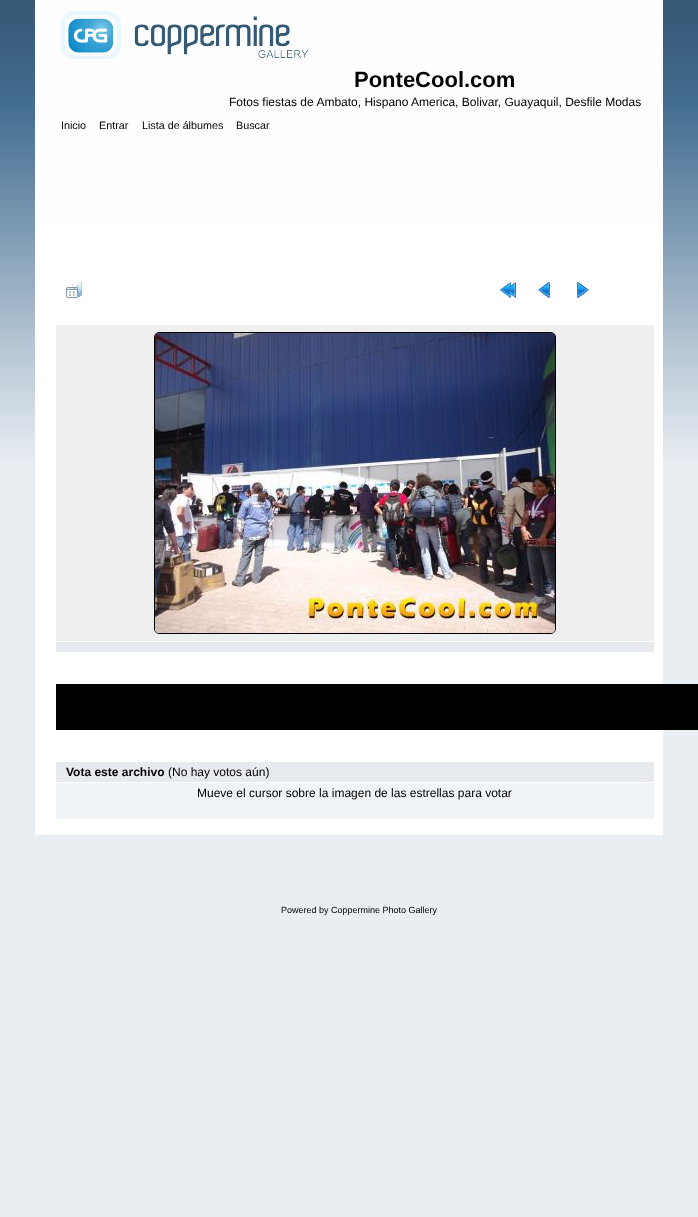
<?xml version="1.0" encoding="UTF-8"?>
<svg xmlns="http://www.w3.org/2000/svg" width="698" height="1217">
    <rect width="100%" height="100%" fill="#E9EEF2"/>
    <image x="0" y="0" width="698" height="462" href="img_01.png"/>
    <rect x="35" y="0" width="628" height="221" fill="#FEFEFE"/>
    <image x="60" y="10" width="249" height="50" href="img_02.png"/>
    <text x="354" y="87" font-family="Liberation Sans" font-size="22" font-weight="700" fill="#000000">PonteCool.com</text>
    <text x="229" y="106" font-family="Liberation Sans" font-size="12" fill="#000000">Fotos fiestas de Ambato, Hispano America, Bolivar, Guayaquil, Desfile Modas</text>
    <text x="61" y="129" font-family="Liberation Sans" font-size="10.75" fill="#000000">Inicio</text>
    <text x="99" y="129" font-family="Liberation Sans" font-size="10.75" fill="#000000">Entrar</text>
    <text x="142" y="129" font-family="Liberation Sans" font-size="10.75" fill="#000000">Lista de álbumes</text>
    <text x="236" y="129" font-family="Liberation Sans" font-size="10.75" fill="#000000">Buscar</text>
    <rect x="35" y="221" width="628" height="614" fill="#FFFFFF"/>
    <image x="66" y="282" width="16" height="16" href="img_03.png"/>
    <image x="500" y="282" width="16" height="16" href="img_04.png"/>
    <image x="538" y="282" width="12" height="16" href="img_05.png"/>
    <image x="577" y="282" width="12" height="16" href="img_06.png"/>
    <rect x="56" y="325" width="598" height="316" fill="#EFEFEF"/>
    <rect x="154.5" y="332.5" width="401" height="301" rx="4.5" fill="none" stroke="#000000"/>
    <image x="155" y="333" width="400" height="300" href="img_07.png"/>
    <rect x="56" y="642" width="598" height="10" fill="#E7EAEF"/>
    <rect x="56" y="684" width="642" height="46" fill="#000000"/>
    <rect x="56" y="762" width="598" height="20" fill="#E7EAEF"/>
    <text x="66" y="776" font-family="Liberation Sans" font-size="12" font-weight="700" fill="#000000">Vota este archivo</text>
    <text x="168" y="776" font-family="Liberation Sans" font-size="12" fill="#000000">(No hay votos aún)</text>
    <rect x="56" y="783" width="598" height="36" fill="#F0F4F7"/>
    <text x="197" y="797" font-family="Liberation Sans" font-size="12" fill="#000000">Mueve el cursor sobre la imagen de las estrellas para votar</text>
    <text x="281" y="913" font-family="Liberation Sans" font-size="9" fill="#000000">Powered by Coppermine Photo Gallery</text>
</svg>
